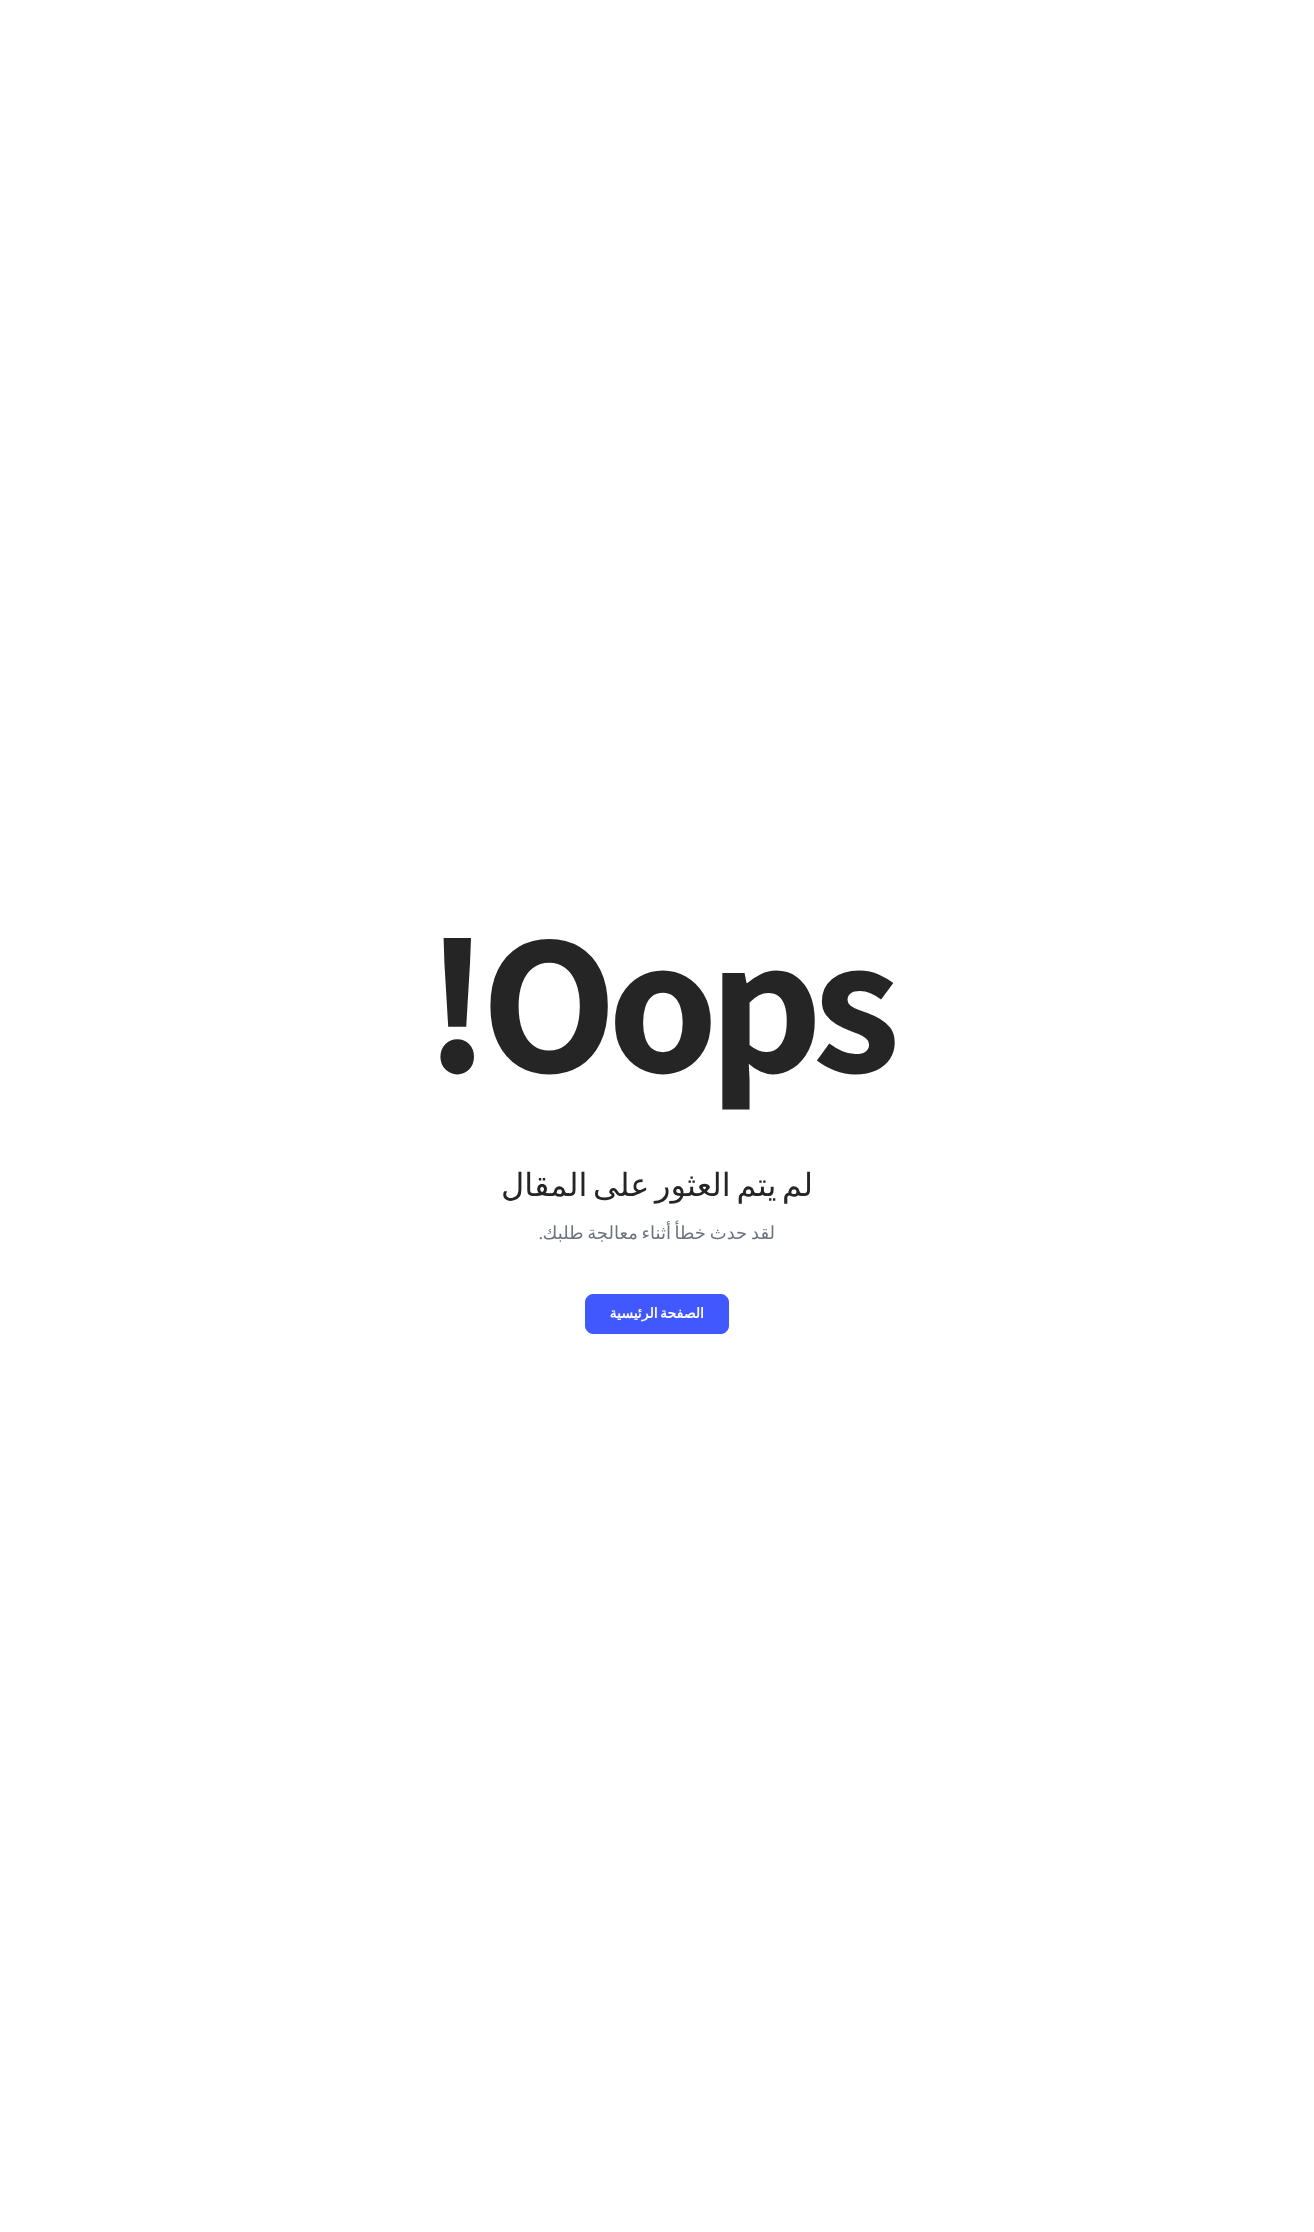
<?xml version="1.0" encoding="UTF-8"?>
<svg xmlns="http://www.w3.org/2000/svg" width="1314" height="2232">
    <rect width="100%" height="100%" fill="#FFFFFF"/>
    <text x="424" y="1072" font-family="Assistant" font-size="200" font-weight="700" letter-spacing="-9.5" fill="#252525">!Oops</text>
    <text x="813" y="1196" word-spacing="-4.5" font-family="DejaVu Sans" font-size="32" direction="rtl" fill="#252525">لم يتم العثور على المقال</text>
    <text x="775" y="1239" word-spacing="-2" font-family="DejaVu Sans" font-size="18" direction="rtl" fill="#6B7280">لقد حدث خطأ أثناء معالجة طلبك</text>
    <text x="543" y="1239" font-family="Assistant" font-size="18" font-weight="500" direction="rtl" fill="#6B7280">.</text>
    <rect x="585.5" y="1294.5" width="143" height="39" rx="7.5" fill="#4258FF" stroke="#4258FF"/>
    <text x="704" y="1318" word-spacing="-2" font-family="DejaVu Sans" font-size="14" font-weight="700" direction="rtl" fill="#FFFFFF">الصفحة الرئيسية</text>
</svg>
